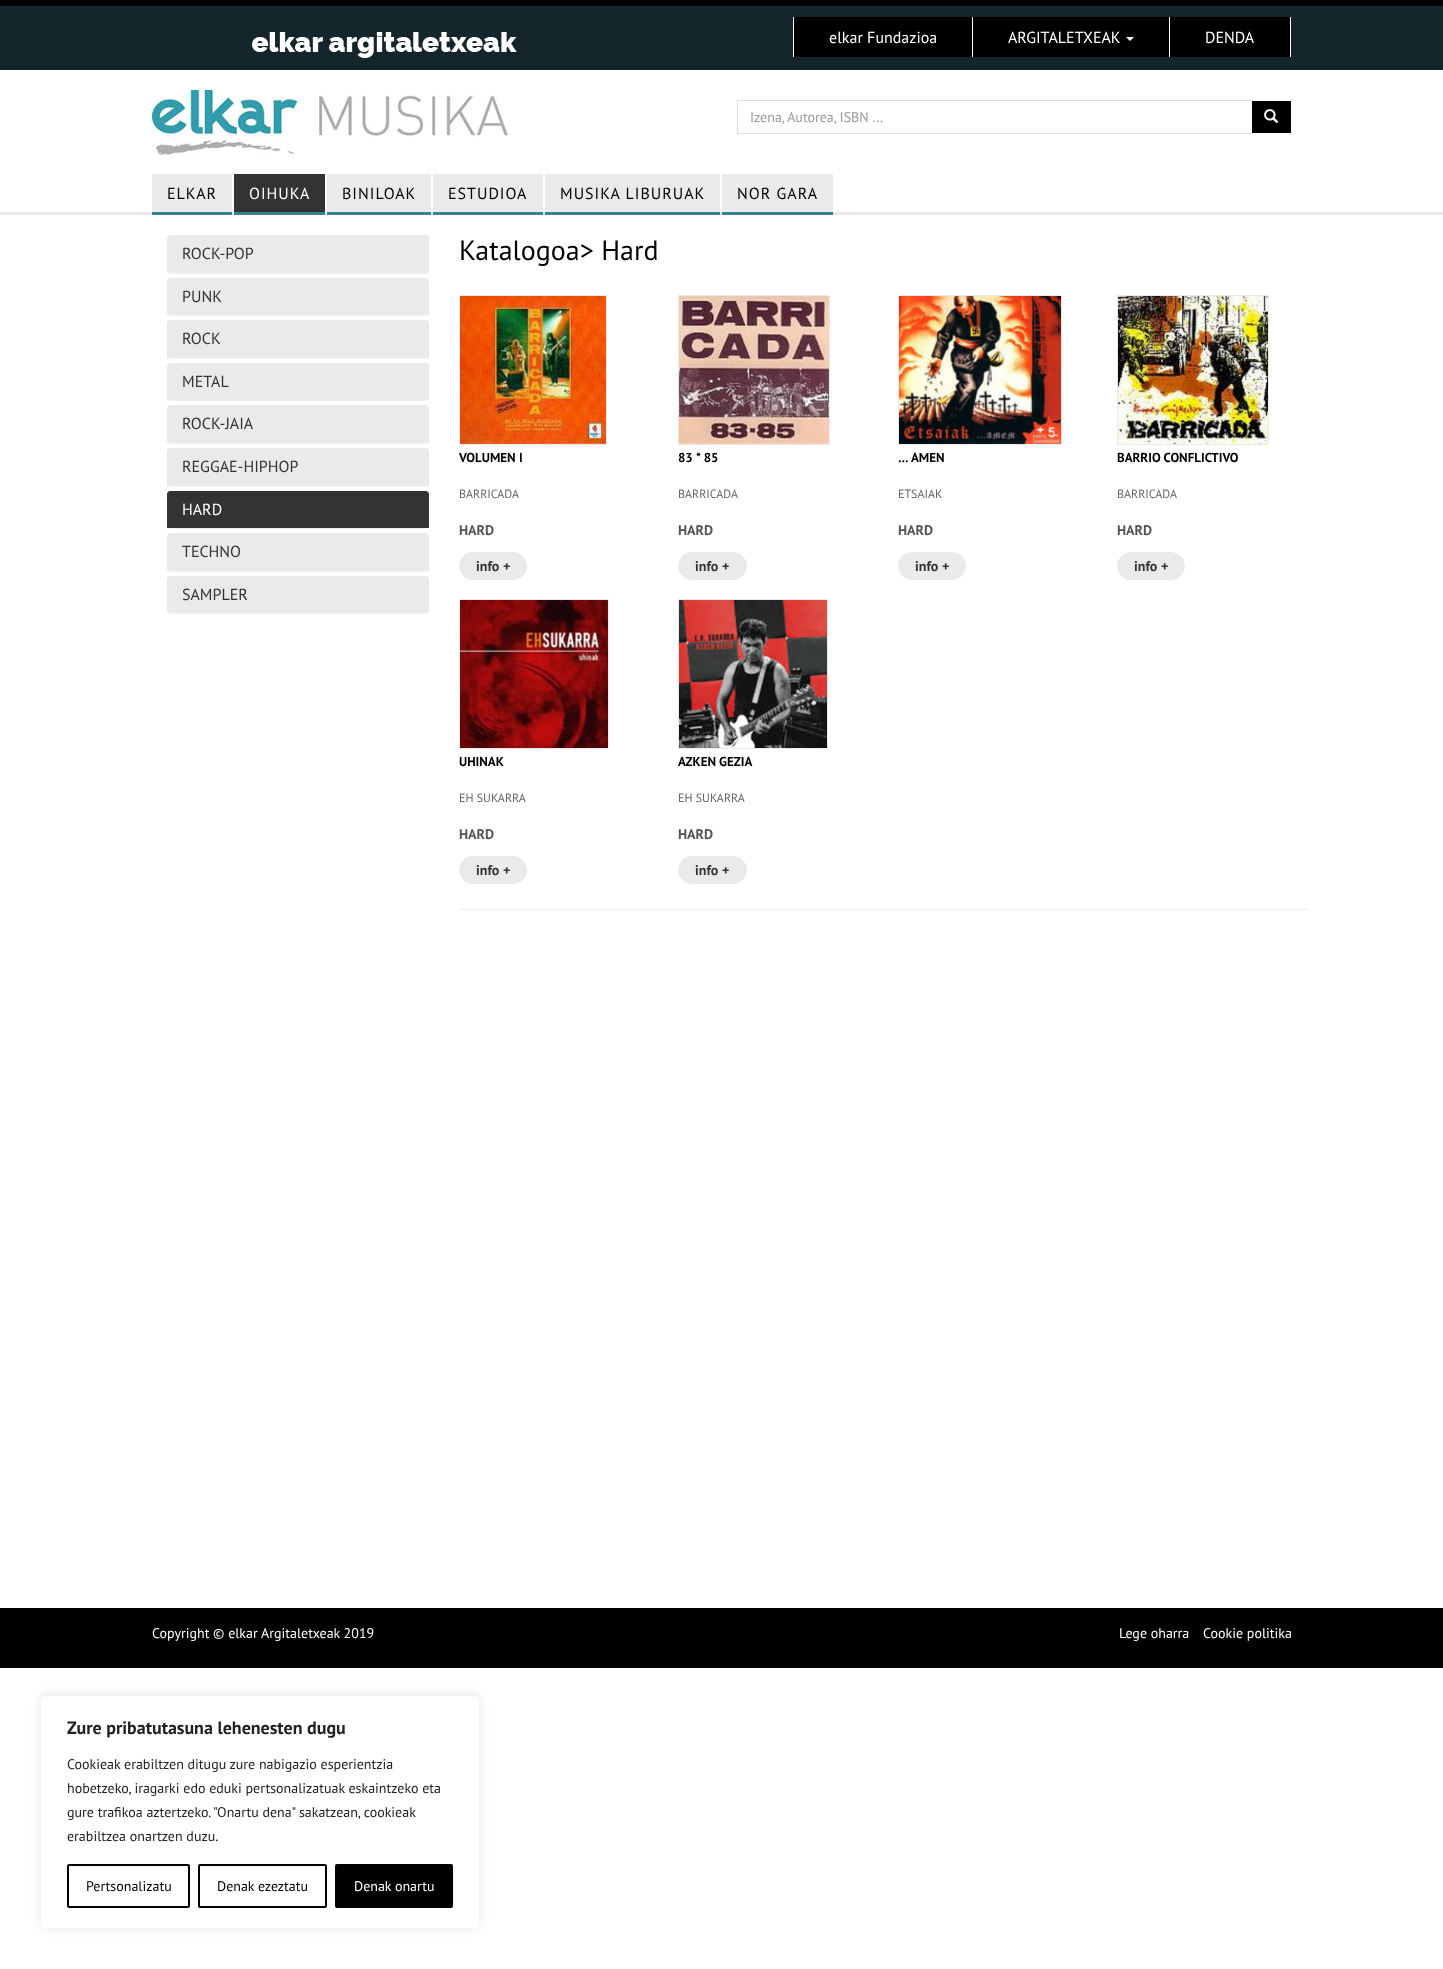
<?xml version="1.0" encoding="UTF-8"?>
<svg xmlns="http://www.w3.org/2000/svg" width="1443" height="1969">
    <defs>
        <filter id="blur1" x="-50%" y="-200%" width="200%" height="500%"><feGaussianBlur stdDeviation="0.5"/></filter>
        <filter id="blur2" x="-50%" y="-200%" width="200%" height="500%"><feGaussianBlur stdDeviation="5"/></filter>
    </defs>
    <rect width="100%" height="100%" fill="#FFFFFF"/>
    <rect x="0" y="6" width="1443" height="64" fill="#14252C"/>
    <rect x="0" y="0" width="1443" height="6" fill="#000000"/>
    <image x="252" y="32" width="265" height="26" href="img_01.png"/>
    <rect x="972" y="17" width="1" height="40" fill="#FFFFFF"/>
    <rect x="793" y="17" width="1" height="40" fill="#FFFFFF"/>
    <rect x="794" y="17" width="178" height="40" fill="#000000"/>
    <text x="829" y="43" font-family="PT Sans" font-size="16" fill="#FFFFFF">elkar Fundazioa</text>
    <rect x="1169" y="17" width="1" height="40" fill="#FFFFFF"/>
    <rect x="973" y="17" width="196" height="40" fill="#000000"/>
    <text x="1008" y="43" font-family="PT Sans" font-size="16" fill="#FFFFFF">ARGITALETXEAK</text>
    <path d="M 1126 37 H 1134 L 1130 41 Z" fill="#FFFFFF"/>
    <rect x="1290" y="17" width="1" height="40" fill="#FFFFFF"/>
    <rect x="1170" y="17" width="120" height="40" fill="#000000"/>
    <text x="1205" y="43" font-family="PT Sans" font-size="16" fill="#FFFFFF">DENDA</text>
    <image x="152" y="90" width="356" height="65" href="img_02.png"/>
    <rect x="737.5" y="100.5" width="514" height="33" fill="none" stroke="#DDDDDD"/>
    <text x="750" y="122" font-family="PT Sans" font-size="14" fill="#999999">Izena, Autorea, ISBN ...</text>
    <rect x="1251.5" y="100.5" width="40" height="33" fill="#000000" stroke="#FFFFFF"/>
    <image x="1264" y="109" width="15" height="14" href="img_03.png"/>
    <rect x="0" y="212" width="1443" height="3" fill="#EAE9E9"/>
    <rect x="152" y="212" width="80" height="3" fill="#368393"/>
    <rect x="152" y="174" width="80" height="38" fill="#EAEAEA"/>
    <text x="167" y="199" font-family="PT Sans" font-size="16" letter-spacing="1" fill="#000000">ELKAR</text>
    <rect x="234" y="212" width="91" height="3" fill="#368393"/>
    <rect x="234" y="174" width="91" height="38" fill="#333333"/>
    <text x="249" y="199" font-family="PT Sans" font-size="16" letter-spacing="1" fill="#FFFFFF">OIHUKA</text>
    <rect x="327" y="212" width="104" height="3" fill="#368393"/>
    <rect x="327" y="174" width="104" height="38" fill="#EAEAEA"/>
    <text x="342" y="199" font-family="PT Sans" font-size="16" letter-spacing="1" fill="#000000">BINILOAK</text>
    <rect x="433" y="212" width="110" height="3" fill="#368393"/>
    <rect x="433" y="174" width="110" height="38" fill="#EAEAEA"/>
    <text x="448" y="199" font-family="PT Sans" font-size="16" letter-spacing="1" fill="#000000">ESTUDIOA</text>
    <rect x="545" y="212" width="175" height="3" fill="#368393"/>
    <rect x="545" y="174" width="175" height="38" fill="#EAEAEA"/>
    <text x="560" y="199" font-family="PT Sans" font-size="16" letter-spacing="1" fill="#000000">MUSIKA LIBURUAK</text>
    <rect x="722" y="212" width="111" height="3" fill="#368393"/>
    <rect x="722" y="174" width="111" height="38" fill="#EAEAEA"/>
    <text x="737" y="199" font-family="PT Sans" font-size="16" letter-spacing="1" fill="#000000">NOR GARA</text>
    <rect x="167" y="236" width="262" height="38" rx="4" fill="#000000" fill-opacity="0.05" filter="url(#blur1)"/>
    <path d="M 170 235 H 426 C 427.5 235 429 236.5 429 238 V 273 H 167 V 238 C 167 236.5 168.5 235 170 235 Z" fill="#EAEAEA"/>
    <text x="182" y="259" font-family="PT Sans" font-size="16" fill="#333333">ROCK-POP</text>
    <rect x="167" y="279" width="262" height="37" rx="4" fill="#000000" fill-opacity="0.05" filter="url(#blur1)"/>
    <path d="M 170 278 H 426 C 427.5 278 429 279.5 429 281 V 315 H 167 V 281 C 167 279.5 168.5 278 170 278 Z" fill="#EAEAEA"/>
    <text x="182" y="302" font-family="PT Sans" font-size="16" fill="#333333">PUNK</text>
    <rect x="167" y="321" width="262" height="38" rx="4" fill="#000000" fill-opacity="0.05" filter="url(#blur1)"/>
    <path d="M 170 320 H 426 C 427.5 320 429 321.5 429 323 V 358 H 167 V 323 C 167 321.5 168.5 320 170 320 Z" fill="#EAEAEA"/>
    <text x="182" y="344" font-family="PT Sans" font-size="16" fill="#333333">ROCK</text>
    <rect x="167" y="364" width="262" height="37" rx="4" fill="#000000" fill-opacity="0.05" filter="url(#blur1)"/>
    <path d="M 170 363 H 426 C 427.5 363 429 364.5 429 366 V 400 H 167 V 366 C 167 364.5 168.5 363 170 363 Z" fill="#EAEAEA"/>
    <text x="182" y="387" font-family="PT Sans" font-size="16" fill="#333333">METAL</text>
    <rect x="167" y="406" width="262" height="38" rx="4" fill="#000000" fill-opacity="0.05" filter="url(#blur1)"/>
    <path d="M 170 405 H 426 C 427.5 405 429 406.5 429 408 V 443 H 167 V 408 C 167 406.5 168.5 405 170 405 Z" fill="#EAEAEA"/>
    <text x="182" y="429" font-family="PT Sans" font-size="16" fill="#333333">ROCK-JAIA</text>
    <rect x="167" y="449" width="262" height="38" rx="4" fill="#000000" fill-opacity="0.05" filter="url(#blur1)"/>
    <path d="M 170 448 H 426 C 427.5 448 429 449.5 429 451 V 486 H 167 V 451 C 167 449.5 168.5 448 170 448 Z" fill="#EAEAEA"/>
    <text x="182" y="472" font-family="PT Sans" font-size="16" fill="#333333">REGGAE-HIPHOP</text>
    <rect x="167" y="492" width="262" height="37" rx="4" fill="#000000" fill-opacity="0.05" filter="url(#blur1)"/>
    <path d="M 170 491 H 426 C 427.5 491 429 492.5 429 494 V 528 H 167 V 494 C 167 492.5 168.5 491 170 491 Z" fill="#333333"/>
    <text x="182" y="515" font-family="PT Sans" font-size="16" fill="#FFFFFF">HARD</text>
    <rect x="167" y="534" width="262" height="38" rx="4" fill="#000000" fill-opacity="0.05" filter="url(#blur1)"/>
    <path d="M 170 533 H 426 C 427.5 533 429 534.5 429 536 V 571 H 167 V 536 C 167 534.5 168.5 533 170 533 Z" fill="#EAEAEA"/>
    <text x="182" y="557" font-family="PT Sans" font-size="16" fill="#333333">TECHNO</text>
    <rect x="167" y="577" width="262" height="37" rx="4" fill="#000000" fill-opacity="0.05" filter="url(#blur1)"/>
    <path d="M 170 576 H 426 C 427.5 576 429 577.5 429 579 V 613 H 167 V 579 C 167 577.5 168.5 576 170 576 Z" fill="#EAEAEA"/>
    <text x="182" y="600" font-family="PT Sans" font-size="16" fill="#333333">SAMPLER</text>
    <text x="459" y="260" font-family="PT Sans" font-size="28" fill="#000000">Katalogoa&gt; Hard</text>
    <rect x="459.5" y="295.5" width="147" height="149" fill="none" stroke="#EAEAEA"/>
    <image x="460" y="296" width="146" height="148" href="img_04.png"/>
    <text x="459" y="462" font-family="PT Sans" font-size="13" font-weight="700" fill="#000000">VOLUMEN I</text>
    <text x="459" y="498" font-family="PT Sans" font-size="12" fill="#666666">BARRICADA</text>
    <text x="459" y="535" font-family="PT Sans" font-size="14" font-weight="700" fill="#545454">HARD</text>
    <rect x="459.5" y="552.5" width="67" height="27" rx="13.5" fill="#EAEAEA" stroke="#EAEAEA"/>
    <text x="476" y="571" font-family="PT Sans" font-size="14" font-weight="700" fill="#333333">info +</text>
    <rect x="678.5" y="295.5" width="151" height="149" fill="none" stroke="#EAEAEA"/>
    <image x="679" y="296" width="150" height="148" href="img_05.png"/>
    <text x="678" y="462" font-family="PT Sans" font-size="13" font-weight="700" fill="#000000">83</text>
    <text x="696" y="462" font-family="PT Sans" font-size="13" font-weight="700" fill="#000000">* 85</text>
    <text x="678" y="498" font-family="PT Sans" font-size="12" fill="#666666">BARRICADA</text>
    <text x="678" y="535" font-family="PT Sans" font-size="14" font-weight="700" fill="#545454">HARD</text>
    <rect x="678.5" y="552.5" width="68" height="27" rx="13.5" fill="#EAEAEA" stroke="#EAEAEA"/>
    <text x="695" y="571" font-family="PT Sans" font-size="14" font-weight="700" fill="#333333">info +</text>
    <rect x="898.5" y="295.5" width="163" height="149" fill="none" stroke="#EAEAEA"/>
    <image x="899" y="296" width="162" height="148" href="img_06.png"/>
    <text x="898" y="462" font-family="PT Sans" font-size="13" font-weight="700" fill="#000000">…</text>
    <text x="911" y="462" font-family="PT Sans" font-size="13" font-weight="700" fill="#000000">AMEN</text>
    <text x="898" y="498" font-family="PT Sans" font-size="12" fill="#666666">ETSAIAK</text>
    <text x="898" y="535" font-family="PT Sans" font-size="14" font-weight="700" fill="#545454">HARD</text>
    <rect x="898.5" y="552.5" width="67" height="27" rx="13.5" fill="#EAEAEA" stroke="#EAEAEA"/>
    <text x="915" y="571" font-family="PT Sans" font-size="14" font-weight="700" fill="#333333">info +</text>
    <rect x="1117.5" y="295.5" width="151" height="149" fill="none" stroke="#EAEAEA"/>
    <image x="1118" y="296" width="150" height="148" href="img_07.png"/>
    <text x="1117" y="462" font-family="PT Sans" font-size="13" font-weight="700" fill="#000000">BARRIO CONFLICTIVO</text>
    <text x="1117" y="498" font-family="PT Sans" font-size="12" fill="#666666">BARRICADA</text>
    <text x="1117" y="535" font-family="PT Sans" font-size="14" font-weight="700" fill="#545454">HARD</text>
    <rect x="1117.5" y="552.5" width="67" height="27" rx="13.5" fill="#EAEAEA" stroke="#EAEAEA"/>
    <text x="1134" y="571" font-family="PT Sans" font-size="14" font-weight="700" fill="#333333">info +</text>
    <rect x="459.5" y="599.5" width="149" height="149" fill="none" stroke="#EAEAEA"/>
    <image x="460" y="600" width="148" height="148" href="img_08.png"/>
    <text x="459" y="766" font-family="PT Sans" font-size="13" font-weight="700" fill="#000000">UHINAK</text>
    <text x="459" y="802" font-family="PT Sans" font-size="12" fill="#666666">EH SUKARRA</text>
    <text x="459" y="839" font-family="PT Sans" font-size="14" font-weight="700" fill="#545454">HARD</text>
    <rect x="459.5" y="856.5" width="67" height="27" rx="13.5" fill="#EAEAEA" stroke="#EAEAEA"/>
    <text x="476" y="875" font-family="PT Sans" font-size="14" font-weight="700" fill="#333333">info +</text>
    <rect x="678.5" y="599.5" width="149" height="149" fill="none" stroke="#EAEAEA"/>
    <image x="679" y="600" width="148" height="148" href="img_09.png"/>
    <text x="678" y="766" font-family="PT Sans" font-size="13" font-weight="700" fill="#000000">AZKEN GEZIA</text>
    <text x="678" y="802" font-family="PT Sans" font-size="12" fill="#666666">EH SUKARRA</text>
    <text x="678" y="839" font-family="PT Sans" font-size="14" font-weight="700" fill="#545454">HARD</text>
    <rect x="678.5" y="856.5" width="68" height="27" rx="13.5" fill="#EAEAEA" stroke="#EAEAEA"/>
    <text x="695" y="875" font-family="PT Sans" font-size="14" font-weight="700" fill="#333333">info +</text>
    <rect x="459" y="909" width="848" height="1" fill="#EDEDED"/>
    <rect x="0" y="1608" width="1443" height="60" fill="#000000"/>
    <text x="152" y="1638" font-family="PT Sans" font-size="14" fill="#FFFFFF">Copyright © elkar Argitaletxeak 2019</text>
    <text x="1119" y="1638" font-family="PT Sans" font-size="14" fill="#FFFFFF">Lege oharra</text>
    <text x="1203" y="1638" font-family="PT Sans" font-size="14" fill="#FFFFFF">Cookie politika</text>
    <rect x="40" y="1694" width="440" height="234" rx="6" fill="#ACABAB" fill-opacity="0.3" filter="url(#blur2)"/>
    <rect x="40.5" y="1695.5" width="439" height="233" rx="5.5" fill="#FFFFFF" stroke="#F4F4F4"/>
    <text x="67" y="1734" font-family="PT Sans" font-size="18" font-weight="700" fill="#212121">Zure pribatutasuna lehenesten dugu</text>
    <text font-family="PT Sans" font-size="14" fill="#212121">
        <tspan x="67" y="1769">Cookieak erabiltzen ditugu zure nabigazio esperientzia</tspan>
        <tspan x="67" y="1793">hobetzeko, iragarki edo eduki pertsonalizatuak eskaintzeko eta</tspan>
        <tspan x="67" y="1817">gure trafikoa aztertzeko. "Onartu dena" sakatzean, cookieak</tspan>
        <tspan x="67" y="1841">erabiltzea onartzen duzu.</tspan>
    </text>
    <rect x="68" y="1865" width="121" height="42" rx="1" fill="none" stroke="#000000" stroke-width="2"/>
    <text x="86" y="1891" font-family="PT Sans" font-size="14" fill="#000000">Pertsonalizatu</text>
    <rect x="199" y="1865" width="127" height="42" rx="1" fill="none" stroke="#000000" stroke-width="2"/>
    <text x="217" y="1891" font-family="PT Sans" font-size="14" fill="#000000">Denak ezeztatu</text>
    <rect x="336" y="1865" width="116" height="42" rx="1" fill="#000000" stroke="#000000" stroke-width="2"/>
    <text x="354" y="1891" font-family="PT Sans" font-size="14" fill="#FFFFFF">Denak onartu</text>
</svg>
